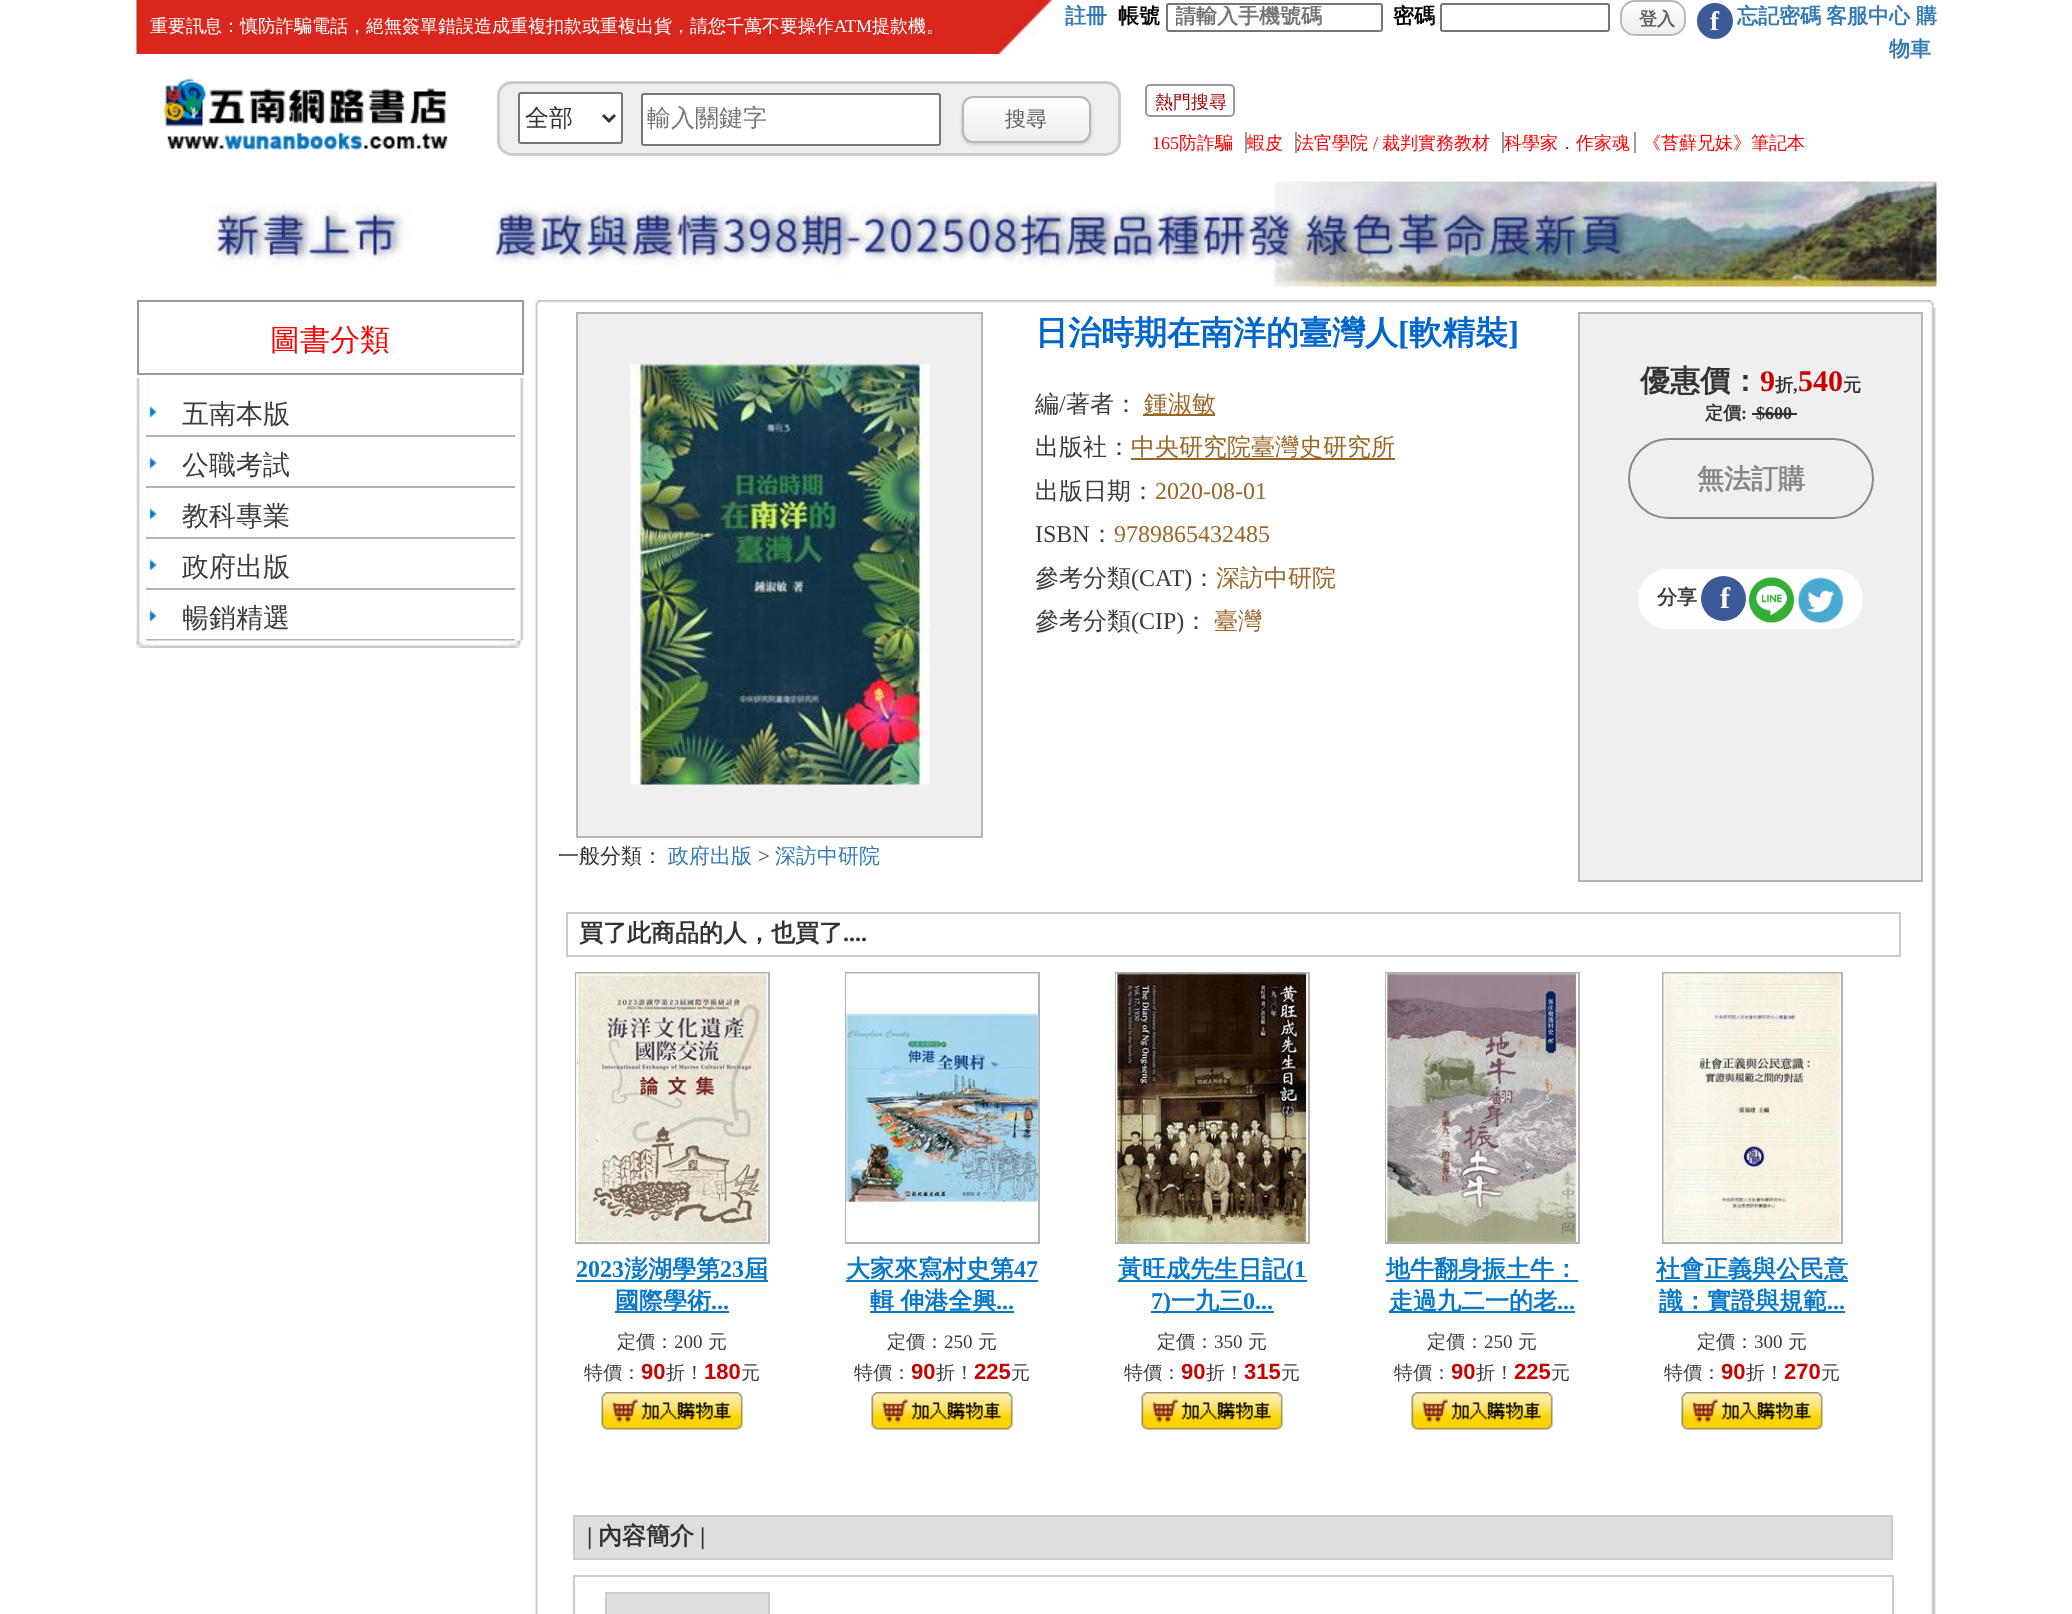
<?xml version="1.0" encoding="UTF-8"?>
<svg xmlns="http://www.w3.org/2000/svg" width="2072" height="1614">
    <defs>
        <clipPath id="clip1"><rect x="1169" y="6" width="211" height="23" rx="5"/></clipPath>
        <clipPath id="clip2"><rect x="1176" y="3" width="197" height="27"/></clipPath>
        <clipPath id="clip3"><rect x="1620" y="0" width="66" height="36" rx="15"/></clipPath>
        <linearGradient id="g1" gradientUnits="userSpaceOnUse" x1="1622" y1="1.5" x2="1622" y2="35"><stop offset="0" stop-color="#FFFFFF"/><stop offset="1" stop-color="#EDEDED"/></linearGradient>
        <filter id="blur1" x="-50%" y="-200%" width="200%" height="500%"><feGaussianBlur stdDeviation="1.5"/></filter>
        <clipPath id="clip4"><rect x="962" y="96" width="129" height="47" rx="11"/></clipPath>
        <linearGradient id="g2" gradientUnits="userSpaceOnUse" x1="963" y1="98" x2="963" y2="141"><stop offset="0" stop-color="#FFFFFF"/><stop offset="1" stop-color="#EDEDED"/></linearGradient>
    </defs>
    <rect width="100%" height="100%" fill="#FFFFFF"/>
    <image x="136" y="0" width="919" height="54" href="img_01.png"/>
    <text x="150" y="32" font-family="WenQuanYi Zen Hei" font-size="18" font-weight="500" fill="#FFFFFF">重要訊息：慎防詐騙電話，絕無簽單錯誤造成重複扣款或重複出貨，請您千萬不要操作</text>
    <text x="834" y="32" font-family="Liberation Serif" font-size="18" fill="#FFFFFF">ATM</text>
    <text x="872" y="32" font-family="WenQuanYi Zen Hei" font-size="18" font-weight="500" fill="#FFFFFF">提款機。</text>
    <text x="1065" y="23" font-family="WenQuanYi Zen Hei" font-size="21" font-weight="700" fill="#337AB7">註冊</text>
    <text x="1118" y="23" font-family="WenQuanYi Zen Hei" font-size="21" font-weight="700" fill="#000000">帳號</text>
    <rect x="1167" y="4" width="215" height="27" rx="2" fill="none" stroke="#767676" stroke-width="2"/>
    <g clip-path="url(#clip1)">
        <g clip-path="url(#clip2)">
            <text x="1175" y="23" font-family="WenQuanYi Zen Hei" font-size="21" font-weight="700" fill="#757575">請輸入手機號碼</text>
        </g>
    </g>
    <text x="1393" y="23" font-family="WenQuanYi Zen Hei" font-size="21" font-weight="700" fill="#000000">密碼</text>
    <rect x="1441" y="4" width="168" height="27" rx="2" fill="none" stroke="#767676" stroke-width="2"/>
    <g clip-path="url(#clip3)">
        <rect x="1620" y="2" width="66" height="33" fill="url(#g1)"/>
    </g>
    <rect x="1621" y="1" width="64" height="34" rx="14" fill="none" stroke="#B7B7B7" stroke-width="2"/>
    <text x="1639" y="25" font-family="WenQuanYi Zen Hei" font-size="18" font-weight="700" fill="#606060">登入</text>
    <circle cx="1715" cy="21" r="18" fill="#3C5A98"/>
    <text x="1710" y="30" font-family="Liberation Serif" font-size="27" font-weight="700" letter-spacing="15" fill="#FFFFFF">f</text>
    <text x="1737" y="23" font-family="WenQuanYi Zen Hei" font-size="21" font-weight="700" fill="#337AB7">忘記密碼</text>
    <text x="1826" y="23" font-family="WenQuanYi Zen Hei" font-size="21" font-weight="700" fill="#337AB7">客服中心</text>
    <text x="1916" y="23" font-family="WenQuanYi Zen Hei" font-size="21" font-weight="700" fill="#337AB7">購</text>
    <text x="1889" y="56" font-family="WenQuanYi Zen Hei" font-size="21" font-weight="700" fill="#337AB7">物車</text>
    <image x="163" y="77" width="285" height="74" href="img_02.png"/>
    <rect x="498.5" y="82.5" width="621" height="72" rx="13.5" fill="#EEEEEE" stroke="#CCCCCC" stroke-width="3"/>
    <rect x="519" y="93" width="103" height="50" rx="2" fill="#FFFFFF" stroke="#767676" stroke-width="2"/>
    <path d="M 603 115 L 609 121 L 615 115" fill="none" stroke="#333333" stroke-width="3"/>
    <text x="525" y="126" font-family="WenQuanYi Zen Hei" font-size="24" font-weight="500" fill="#333333">全部</text>
    <rect x="642" y="94" width="298" height="51" rx="2" fill="#FFFFFF" stroke="#767676" stroke-width="2"/>
    <text x="647" y="126" font-family="WenQuanYi Zen Hei" font-size="24" font-weight="500" fill="#757575">輸入關鍵字</text>
    <rect x="962" y="98" width="129" height="46" rx="11" fill="#000000" fill-opacity="0.2" filter="url(#blur1)"/>
    <g clip-path="url(#clip4)">
        <rect x="962" y="98" width="129" height="43" fill="url(#g2)"/>
    </g>
    <rect x="963" y="97" width="127" height="45" rx="10" fill="none" stroke="#B7B7B7" stroke-width="2"/>
    <text x="1005" y="126" font-family="WenQuanYi Zen Hei" font-size="21" font-weight="500" fill="#606060">搜尋</text>
    <rect x="1146" y="85" width="88" height="31" rx="4" fill="none" stroke="#999999" stroke-width="2"/>
    <text x="1155" y="108" font-family="WenQuanYi Zen Hei" font-size="18" font-weight="500" fill="#A10602">熱門搜尋</text>
    <text x="1152" y="149" font-family="Liberation Serif" font-size="18" fill="#FF0000">165</text>
    <text x="1179" y="149" font-family="WenQuanYi Zen Hei" font-size="18" font-weight="500" fill="#FF0000">防詐騙</text>
    <rect x="1245" y="132" width="2" height="21" fill="#999999"/>
    <text x="1247" y="149" font-family="WenQuanYi Zen Hei" font-size="18" font-weight="500" fill="#FF0000">蝦皮</text>
    <rect x="1295" y="132" width="2" height="21" fill="#999999"/>
    <text x="1296" y="149" font-family="WenQuanYi Zen Hei" font-size="18" font-weight="500" fill="#FF0000">法官學院</text>
    <text x="1373" y="149" font-family="Liberation Serif" font-size="18" fill="#FF0000">/</text>
    <text x="1382" y="149" font-family="WenQuanYi Zen Hei" font-size="18" font-weight="500" fill="#FF0000">裁判實務教材</text>
    <rect x="1502" y="132" width="2" height="21" fill="#999999"/>
    <text x="1504" y="149" font-family="WenQuanYi Zen Hei" font-size="18" font-weight="500" fill="#FF0000">科學家．作家魂</text>
    <text x="1643" y="149" font-family="WenQuanYi Zen Hei" font-size="18" font-weight="500" fill="#FF0000">《苔蘚兄妹》筆記本</text>
    <rect x="1634" y="132" width="2" height="21" fill="#999999"/>
    <image x="208" y="181" width="1729" height="106" href="img_03.png"/>
    <rect x="138" y="301" width="385" height="73" fill="none" stroke="#999999" stroke-width="2"/>
    <text x="270" y="350" font-family="WenQuanYi Zen Hei" font-size="30" font-weight="500" fill="#FF0000">圖書分類</text>
    <image x="136" y="378" width="388" height="263" href="img_04.png"/>
    <rect x="146" y="435" width="369" height="2" fill="#B3B3B3"/>
    <image x="145" y="404" width="13" height="23" href="img_05.png"/>
    <text x="182" y="423" font-family="WenQuanYi Zen Hei" font-size="27" font-weight="500" fill="#3F3B3A">五南本版</text>
    <rect x="146" y="486" width="369" height="2" fill="#B3B3B3"/>
    <image x="145" y="455" width="13" height="23" href="img_05.png"/>
    <text x="182" y="474" font-family="WenQuanYi Zen Hei" font-size="27" font-weight="500" fill="#3F3B3A">公職考試</text>
    <rect x="146" y="537" width="369" height="2" fill="#B3B3B3"/>
    <image x="145" y="506" width="13" height="23" href="img_05.png"/>
    <text x="182" y="525" font-family="WenQuanYi Zen Hei" font-size="27" font-weight="500" fill="#3F3B3A">教科專業</text>
    <rect x="146" y="588" width="369" height="2" fill="#B3B3B3"/>
    <image x="145" y="557" width="13" height="23" href="img_05.png"/>
    <text x="182" y="576" font-family="WenQuanYi Zen Hei" font-size="27" font-weight="500" fill="#3F3B3A">政府出版</text>
    <rect x="146" y="639" width="369" height="2" fill="#B3B3B3"/>
    <image x="145" y="608" width="13" height="23" href="img_05.png"/>
    <text x="182" y="627" font-family="WenQuanYi Zen Hei" font-size="27" font-weight="500" fill="#3F3B3A">暢銷精選</text>
    <image x="136" y="640" width="385" height="8" href="img_06.png"/>
    <image x="535" y="307" width="1401" height="1307" href="img_08.png"/>
    <image x="535" y="300" width="1399" height="8" href="img_07.png"/>
    <text x="1035" y="344" font-family="WenQuanYi Zen Hei" font-size="33" font-weight="700" fill="#0066CC">日治時期在南洋的臺灣人</text>
    <text x="1398" y="344" font-family="Liberation Serif" font-size="33" font-weight="700" fill="#0066CC">[</text>
    <text x="1409" y="344" font-family="WenQuanYi Zen Hei" font-size="33" font-weight="700" fill="#0066CC">軟精裝</text>
    <text x="1508" y="344" font-family="Liberation Serif" font-size="33" font-weight="700" fill="#0066CC">]</text>
    <text x="1035" y="412" font-family="WenQuanYi Zen Hei" font-size="24" font-weight="500" fill="#3F3B3A">編</text>
    <text x="1059" y="412" font-family="Liberation Serif" font-size="24" fill="#3F3B3A">/</text>
    <text x="1066" y="412" font-family="WenQuanYi Zen Hei" font-size="24" font-weight="500" fill="#3F3B3A">著者：</text>
    <rect x="1143" y="414" width="72" height="2" fill="#996625"/>
    <text x="1144" y="412" font-family="WenQuanYi Zen Hei" font-size="24" font-weight="500" fill="#996625">鍾淑敏</text>
    <text x="1035" y="455" font-family="WenQuanYi Zen Hei" font-size="24" font-weight="500" fill="#3F3B3A">出版社：</text>
    <rect x="1131" y="458" width="264" height="2" fill="#996625"/>
    <text x="1131" y="455" font-family="WenQuanYi Zen Hei" font-size="24" font-weight="500" fill="#996625">中央研究院臺灣史研究所</text>
    <text x="1035" y="499" font-family="WenQuanYi Zen Hei" font-size="24" font-weight="500" fill="#3F3B3A">出版日期：</text>
    <text x="1155" y="499" font-family="Liberation Serif" font-size="24" fill="#996625">2020-08-01</text>
    <text x="1035" y="542" font-family="Liberation Serif" font-size="24" fill="#3F3B3A">ISBN</text>
    <text x="1090" y="542" font-family="WenQuanYi Zen Hei" font-size="24" font-weight="500" fill="#3F3B3A">：</text>
    <text x="1114" y="542" font-family="Liberation Serif" font-size="24" fill="#996625">9789865432485</text>
    <text x="1035" y="586" font-family="WenQuanYi Zen Hei" font-size="24" font-weight="500" fill="#3F3B3A">參考分類</text>
    <text x="1131" y="586" font-family="Liberation Serif" font-size="24" fill="#3F3B3A">(CAT)</text>
    <text x="1192" y="586" font-family="WenQuanYi Zen Hei" font-size="24" font-weight="500" fill="#3F3B3A">：</text>
    <text x="1216" y="586" font-family="WenQuanYi Zen Hei" font-size="24" font-weight="500" fill="#996625">深訪中研院</text>
    <text x="1035" y="629" font-family="WenQuanYi Zen Hei" font-size="24" font-weight="500" fill="#3F3B3A">參考分類</text>
    <text x="1131" y="629" font-family="Liberation Serif" font-size="24" fill="#3F3B3A">(CIP)</text>
    <text x="1184" y="629" font-family="WenQuanYi Zen Hei" font-size="24" font-weight="500" fill="#3F3B3A">：</text>
    <text x="1214" y="629" font-family="WenQuanYi Zen Hei" font-size="24" font-weight="500" fill="#996625">臺灣</text>
    <rect x="1579" y="313" width="343" height="568" fill="#EEEFEF" stroke="#B4B5B5" stroke-width="2"/>
    <text x="1640" y="391" font-family="WenQuanYi Zen Hei" font-size="30" font-weight="700" fill="#333333">優惠價：</text>
    <text x="1760" y="391" font-family="Liberation Serif" font-size="30" font-weight="700" fill="#CD0000">9</text>
    <text x="1798" y="391" font-family="Liberation Serif" font-size="30" font-weight="700" fill="#CD0000">540</text>
    <text x="1843" y="391" font-family="WenQuanYi Zen Hei" font-size="18" font-weight="700" fill="#333333">元</text>
    <text x="1705" y="419" font-family="WenQuanYi Zen Hei" font-size="18" font-weight="700" fill="#333333">定價</text>
    <text x="1741" y="419" font-family="Liberation Serif" font-size="18" font-weight="700" fill="#333333">:</text>
    <text x="1756" y="419" font-family="Liberation Serif" font-size="18" font-weight="700" fill="#333333">$600</text>
    <rect x="1752" y="413" width="45" height="2" fill="#313131"/>
    <rect x="1629" y="439" width="244" height="79" rx="39.5" fill="none" stroke="#888889" stroke-width="2"/>
    <text x="1697" y="488" font-family="WenQuanYi Zen Hei" font-size="27" font-weight="700" fill="#888889">無法訂購</text>
    <text x="1775" y="391" font-family="WenQuanYi Zen Hei" font-size="18" font-weight="700" fill="#333333">折</text>
    <text x="1793" y="391" font-family="Liberation Serif" font-size="18" font-weight="700" fill="#333333">,</text>
    <rect x="1638" y="569" width="225" height="60" rx="30" fill="#FFFFFF"/>
    <text x="1657" y="604" font-family="WenQuanYi Zen Hei" font-size="20" font-weight="700" fill="#3F3B3A">分享</text>
    <circle cx="1723.5" cy="598.5" r="22.5" fill="#3C5A98"/>
    <text x="1720" y="608" font-family="Liberation Serif" font-size="30" font-weight="700" letter-spacing="15" fill="#FFFFFF">f</text>
    <image x="1749" y="577" width="45" height="46" href="img_09.png"/>
    <image x="1798" y="577" width="46" height="46" href="img_10.png"/>
    <rect x="578" y="314" width="403" height="522" fill="#EFEFEF"/>
    <rect x="576" y="312" width="407" height="2" fill="#B4B5B5"/>
    <rect x="981" y="312" width="2" height="525" fill="#B4B5B5"/>
    <rect x="576" y="836" width="407" height="2" fill="#B4B5B5"/>
    <rect x="576" y="312" width="2" height="525" fill="#B4B5B5"/>
    <image x="630" y="364" width="300" height="421" href="img_11.png"/>
    <text x="558" y="863" font-family="WenQuanYi Zen Hei" font-size="21" font-weight="500" fill="#333333">一般分類：</text>
    <text x="668" y="863" font-family="WenQuanYi Zen Hei" font-size="21" font-weight="500" fill="#337AB7">政府出版</text>
    <text x="758" y="863" font-family="Liberation Serif" font-size="21" fill="#333333">&gt;</text>
    <text x="775" y="863" font-family="WenQuanYi Zen Hei" font-size="21" font-weight="500" fill="#337AB7">深訪中研院</text>
    <rect x="567" y="913" width="1333" height="43" fill="none" stroke="#CCCCCC" stroke-width="2"/>
    <text x="579" y="941" font-family="WenQuanYi Zen Hei" font-size="24" font-weight="700" fill="#333333">買了此商品的人，也買了</text>
    <text x="843" y="941" font-family="Liberation Serif" font-size="24" font-weight="700" fill="#333333">....</text>
    <rect x="575" y="972" width="195" height="2" fill="#B3B3B3"/>
    <rect x="768" y="972" width="2" height="272" fill="#B3B3B3"/>
    <rect x="575" y="1242" width="195" height="2" fill="#B3B3B3"/>
    <rect x="575" y="972" width="2" height="272" fill="#B3B3B3"/>
    <image x="576" y="973" width="192" height="269" href="img_12.png"/>
    <text x="576" y="1277" font-family="Liberation Serif" font-size="24" font-weight="700" fill="#0A78C8">2023</text>
    <rect x="576" y="1280" width="192" height="2" fill="#0A78C8"/>
    <text x="624" y="1277" font-family="WenQuanYi Zen Hei" font-size="24" font-weight="700" fill="#0A78C8">澎湖學第</text>
    <text x="720" y="1277" font-family="Liberation Serif" font-size="24" font-weight="700" fill="#0A78C8">23</text>
    <text x="744" y="1277" font-family="WenQuanYi Zen Hei" font-size="24" font-weight="700" fill="#0A78C8">屆</text>
    <rect x="615" y="1311" width="114" height="2" fill="#0A78C8"/>
    <text x="615" y="1309" font-family="WenQuanYi Zen Hei" font-size="24" font-weight="700" fill="#0A78C8">國際學術</text>
    <text x="711" y="1309" font-family="Liberation Serif" font-size="24" font-weight="700" fill="#0A78C8">...</text>
    <text x="617" y="1348" font-family="WenQuanYi Zen Hei" font-size="19" font-weight="500" fill="#3F3B3A">定價：</text>
    <text x="674" y="1348" font-family="Liberation Serif" font-size="19" fill="#3F3B3A">200</text>
    <text x="708" y="1348" font-family="WenQuanYi Zen Hei" font-size="19" font-weight="500" fill="#3F3B3A">元</text>
    <text x="584" y="1379" font-family="WenQuanYi Zen Hei" font-size="19" font-weight="500" fill="#3F3B3A">特價：</text>
    <text x="641" y="1379" font-family="Liberation Sans" font-size="22" font-weight="700" fill="#CD0000">90</text>
    <text x="666" y="1379" font-family="WenQuanYi Zen Hei" font-size="19" font-weight="500" fill="#3F3B3A">折！</text>
    <text x="704" y="1379" font-family="Liberation Sans" font-size="22" font-weight="700" fill="#CD0000">180</text>
    <text x="741" y="1379" font-family="WenQuanYi Zen Hei" font-size="19" font-weight="500" fill="#3F3B3A">元</text>
    <image x="601" y="1392" width="142" height="38" href="img_13.png"/>
    <rect x="845" y="972" width="195" height="2" fill="#B3B3B3"/>
    <rect x="1038" y="972" width="2" height="272" fill="#B3B3B3"/>
    <rect x="845" y="1242" width="195" height="2" fill="#B3B3B3"/>
    <rect x="845" y="972" width="2" height="272" fill="#B3B3B3"/>
    <image x="846" y="973" width="192" height="269" href="img_14.png"/>
    <rect x="846" y="1280" width="192" height="2" fill="#0A78C8"/>
    <text x="846" y="1277" font-family="WenQuanYi Zen Hei" font-size="24" font-weight="700" fill="#0A78C8">大家來寫村史第</text>
    <text x="1014" y="1277" font-family="Liberation Serif" font-size="24" font-weight="700" fill="#0A78C8">47</text>
    <rect x="870" y="1311" width="144" height="2" fill="#0A78C8"/>
    <text x="870" y="1309" word-spacing="-1" font-family="WenQuanYi Zen Hei" font-size="24" font-weight="700" fill="#0A78C8">輯 伸港全興</text>
    <text x="996" y="1309" font-family="Liberation Serif" font-size="24" font-weight="700" fill="#0A78C8">...</text>
    <text x="887" y="1348" font-family="WenQuanYi Zen Hei" font-size="19" font-weight="500" fill="#3F3B3A">定價：</text>
    <text x="944" y="1348" font-family="Liberation Serif" font-size="19" fill="#3F3B3A">250</text>
    <text x="978" y="1348" font-family="WenQuanYi Zen Hei" font-size="19" font-weight="500" fill="#3F3B3A">元</text>
    <text x="854" y="1379" font-family="WenQuanYi Zen Hei" font-size="19" font-weight="500" fill="#3F3B3A">特價：</text>
    <text x="911" y="1379" font-family="Liberation Sans" font-size="22" font-weight="700" fill="#CD0000">90</text>
    <text x="936" y="1379" font-family="WenQuanYi Zen Hei" font-size="19" font-weight="500" fill="#3F3B3A">折！</text>
    <text x="974" y="1379" font-family="Liberation Sans" font-size="22" font-weight="700" fill="#CD0000">225</text>
    <text x="1011" y="1379" font-family="WenQuanYi Zen Hei" font-size="19" font-weight="500" fill="#3F3B3A">元</text>
    <image x="871" y="1392" width="142" height="38" href="img_15.png"/>
    <rect x="1115" y="972" width="195" height="2" fill="#B3B3B3"/>
    <rect x="1308" y="972" width="2" height="272" fill="#B3B3B3"/>
    <rect x="1115" y="1242" width="195" height="2" fill="#B3B3B3"/>
    <rect x="1115" y="972" width="2" height="272" fill="#B3B3B3"/>
    <image x="1116" y="973" width="192" height="269" href="img_16.png"/>
    <rect x="1118" y="1280" width="189" height="2" fill="#0A78C8"/>
    <text x="1118" y="1277" font-family="WenQuanYi Zen Hei" font-size="24" font-weight="700" fill="#0A78C8">黃旺成先生日記</text>
    <text x="1286" y="1277" font-family="Liberation Serif" font-size="24" font-weight="700" fill="#0A78C8">(1</text>
    <rect x="1151" y="1311" width="123" height="2" fill="#0A78C8"/>
    <text x="1151" y="1309" font-family="Liberation Serif" font-size="24" font-weight="700" fill="#0A78C8">7)</text>
    <text x="1171" y="1309" font-family="WenQuanYi Zen Hei" font-size="24" font-weight="700" fill="#0A78C8">一九三</text>
    <text x="1243" y="1309" font-family="Liberation Serif" font-size="24" font-weight="700" fill="#0A78C8">0...</text>
    <text x="1157" y="1348" font-family="WenQuanYi Zen Hei" font-size="19" font-weight="500" fill="#3F3B3A">定價：</text>
    <text x="1214" y="1348" font-family="Liberation Serif" font-size="19" fill="#3F3B3A">350</text>
    <text x="1248" y="1348" font-family="WenQuanYi Zen Hei" font-size="19" font-weight="500" fill="#3F3B3A">元</text>
    <text x="1124" y="1379" font-family="WenQuanYi Zen Hei" font-size="19" font-weight="500" fill="#3F3B3A">特價：</text>
    <text x="1181" y="1379" font-family="Liberation Sans" font-size="22" font-weight="700" fill="#CD0000">90</text>
    <text x="1206" y="1379" font-family="WenQuanYi Zen Hei" font-size="19" font-weight="500" fill="#3F3B3A">折！</text>
    <text x="1244" y="1379" font-family="Liberation Sans" font-size="22" font-weight="700" fill="#CD0000">315</text>
    <text x="1281" y="1379" font-family="WenQuanYi Zen Hei" font-size="19" font-weight="500" fill="#3F3B3A">元</text>
    <image x="1141" y="1392" width="142" height="38" href="img_17.png"/>
    <rect x="1385" y="972" width="195" height="2" fill="#B3B3B3"/>
    <rect x="1578" y="972" width="2" height="272" fill="#B3B3B3"/>
    <rect x="1385" y="1242" width="195" height="2" fill="#B3B3B3"/>
    <rect x="1385" y="972" width="2" height="272" fill="#B3B3B3"/>
    <image x="1386" y="973" width="192" height="269" href="img_18.png"/>
    <rect x="1386" y="1280" width="192" height="2" fill="#0A78C8"/>
    <text x="1386" y="1277" font-family="WenQuanYi Zen Hei" font-size="24" font-weight="700" fill="#0A78C8">地牛翻身振土牛：</text>
    <rect x="1389" y="1311" width="186" height="2" fill="#0A78C8"/>
    <text x="1389" y="1309" font-family="WenQuanYi Zen Hei" font-size="24" font-weight="700" fill="#0A78C8">走過九二一的老</text>
    <text x="1557" y="1309" font-family="Liberation Serif" font-size="24" font-weight="700" fill="#0A78C8">...</text>
    <text x="1427" y="1348" font-family="WenQuanYi Zen Hei" font-size="19" font-weight="500" fill="#3F3B3A">定價：</text>
    <text x="1484" y="1348" font-family="Liberation Serif" font-size="19" fill="#3F3B3A">250</text>
    <text x="1518" y="1348" font-family="WenQuanYi Zen Hei" font-size="19" font-weight="500" fill="#3F3B3A">元</text>
    <text x="1394" y="1379" font-family="WenQuanYi Zen Hei" font-size="19" font-weight="500" fill="#3F3B3A">特價：</text>
    <text x="1451" y="1379" font-family="Liberation Sans" font-size="22" font-weight="700" fill="#CD0000">90</text>
    <text x="1476" y="1379" font-family="WenQuanYi Zen Hei" font-size="19" font-weight="500" fill="#3F3B3A">折！</text>
    <text x="1514" y="1379" font-family="Liberation Sans" font-size="22" font-weight="700" fill="#CD0000">225</text>
    <text x="1551" y="1379" font-family="WenQuanYi Zen Hei" font-size="19" font-weight="500" fill="#3F3B3A">元</text>
    <image x="1411" y="1392" width="142" height="38" href="img_19.png"/>
    <rect x="1662" y="972" width="180" height="2" fill="#B3B3B3"/>
    <rect x="1841" y="972" width="2" height="272" fill="#B3B3B3"/>
    <rect x="1662" y="1242" width="180" height="2" fill="#B3B3B3"/>
    <rect x="1662" y="972" width="2" height="272" fill="#B3B3B3"/>
    <image x="1663" y="973" width="178" height="269" href="img_20.png"/>
    <rect x="1656" y="1280" width="192" height="2" fill="#0A78C8"/>
    <text x="1656" y="1277" font-family="WenQuanYi Zen Hei" font-size="24" font-weight="700" fill="#0A78C8">社會正義與公民意</text>
    <rect x="1659" y="1311" width="186" height="2" fill="#0A78C8"/>
    <text x="1659" y="1309" font-family="WenQuanYi Zen Hei" font-size="24" font-weight="700" fill="#0A78C8">識：實證與規範</text>
    <text x="1827" y="1309" font-family="Liberation Serif" font-size="24" font-weight="700" fill="#0A78C8">...</text>
    <text x="1697" y="1348" font-family="WenQuanYi Zen Hei" font-size="19" font-weight="500" fill="#3F3B3A">定價：</text>
    <text x="1754" y="1348" font-family="Liberation Serif" font-size="19" fill="#3F3B3A">300</text>
    <text x="1788" y="1348" font-family="WenQuanYi Zen Hei" font-size="19" font-weight="500" fill="#3F3B3A">元</text>
    <text x="1664" y="1379" font-family="WenQuanYi Zen Hei" font-size="19" font-weight="500" fill="#3F3B3A">特價：</text>
    <text x="1721" y="1379" font-family="Liberation Sans" font-size="22" font-weight="700" fill="#CD0000">90</text>
    <text x="1746" y="1379" font-family="WenQuanYi Zen Hei" font-size="19" font-weight="500" fill="#3F3B3A">折！</text>
    <text x="1784" y="1379" font-family="Liberation Sans" font-size="22" font-weight="700" fill="#CD0000">270</text>
    <text x="1821" y="1379" font-family="WenQuanYi Zen Hei" font-size="19" font-weight="500" fill="#3F3B3A">元</text>
    <image x="1681" y="1392" width="142" height="38" href="img_15.png"/>
    <rect x="574" y="1516" width="1318" height="43" fill="#DEDEDE" stroke="#CCCCCC" stroke-width="2"/>
    <text x="587" y="1544" font-family="Liberation Serif" font-size="24" font-weight="700" fill="#333333">|</text>
    <text x="598" y="1544" font-family="WenQuanYi Zen Hei" font-size="24" font-weight="700" fill="#333333">內容簡介</text>
    <text x="700" y="1544" font-family="Liberation Serif" font-size="24" font-weight="700" fill="#333333">|</text>
    <rect x="573" y="1575" width="1320" height="2" fill="#CCCCCC"/>
    <rect x="1892" y="1575" width="2" height="39" fill="#CCCCCC"/>
    <rect x="573" y="1575" width="2" height="39" fill="#CCCCCC"/>
    <rect x="606" y="1593" width="163" height="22" fill="#DEDEDE" stroke="#CCCCCC" stroke-width="2"/>
</svg>
